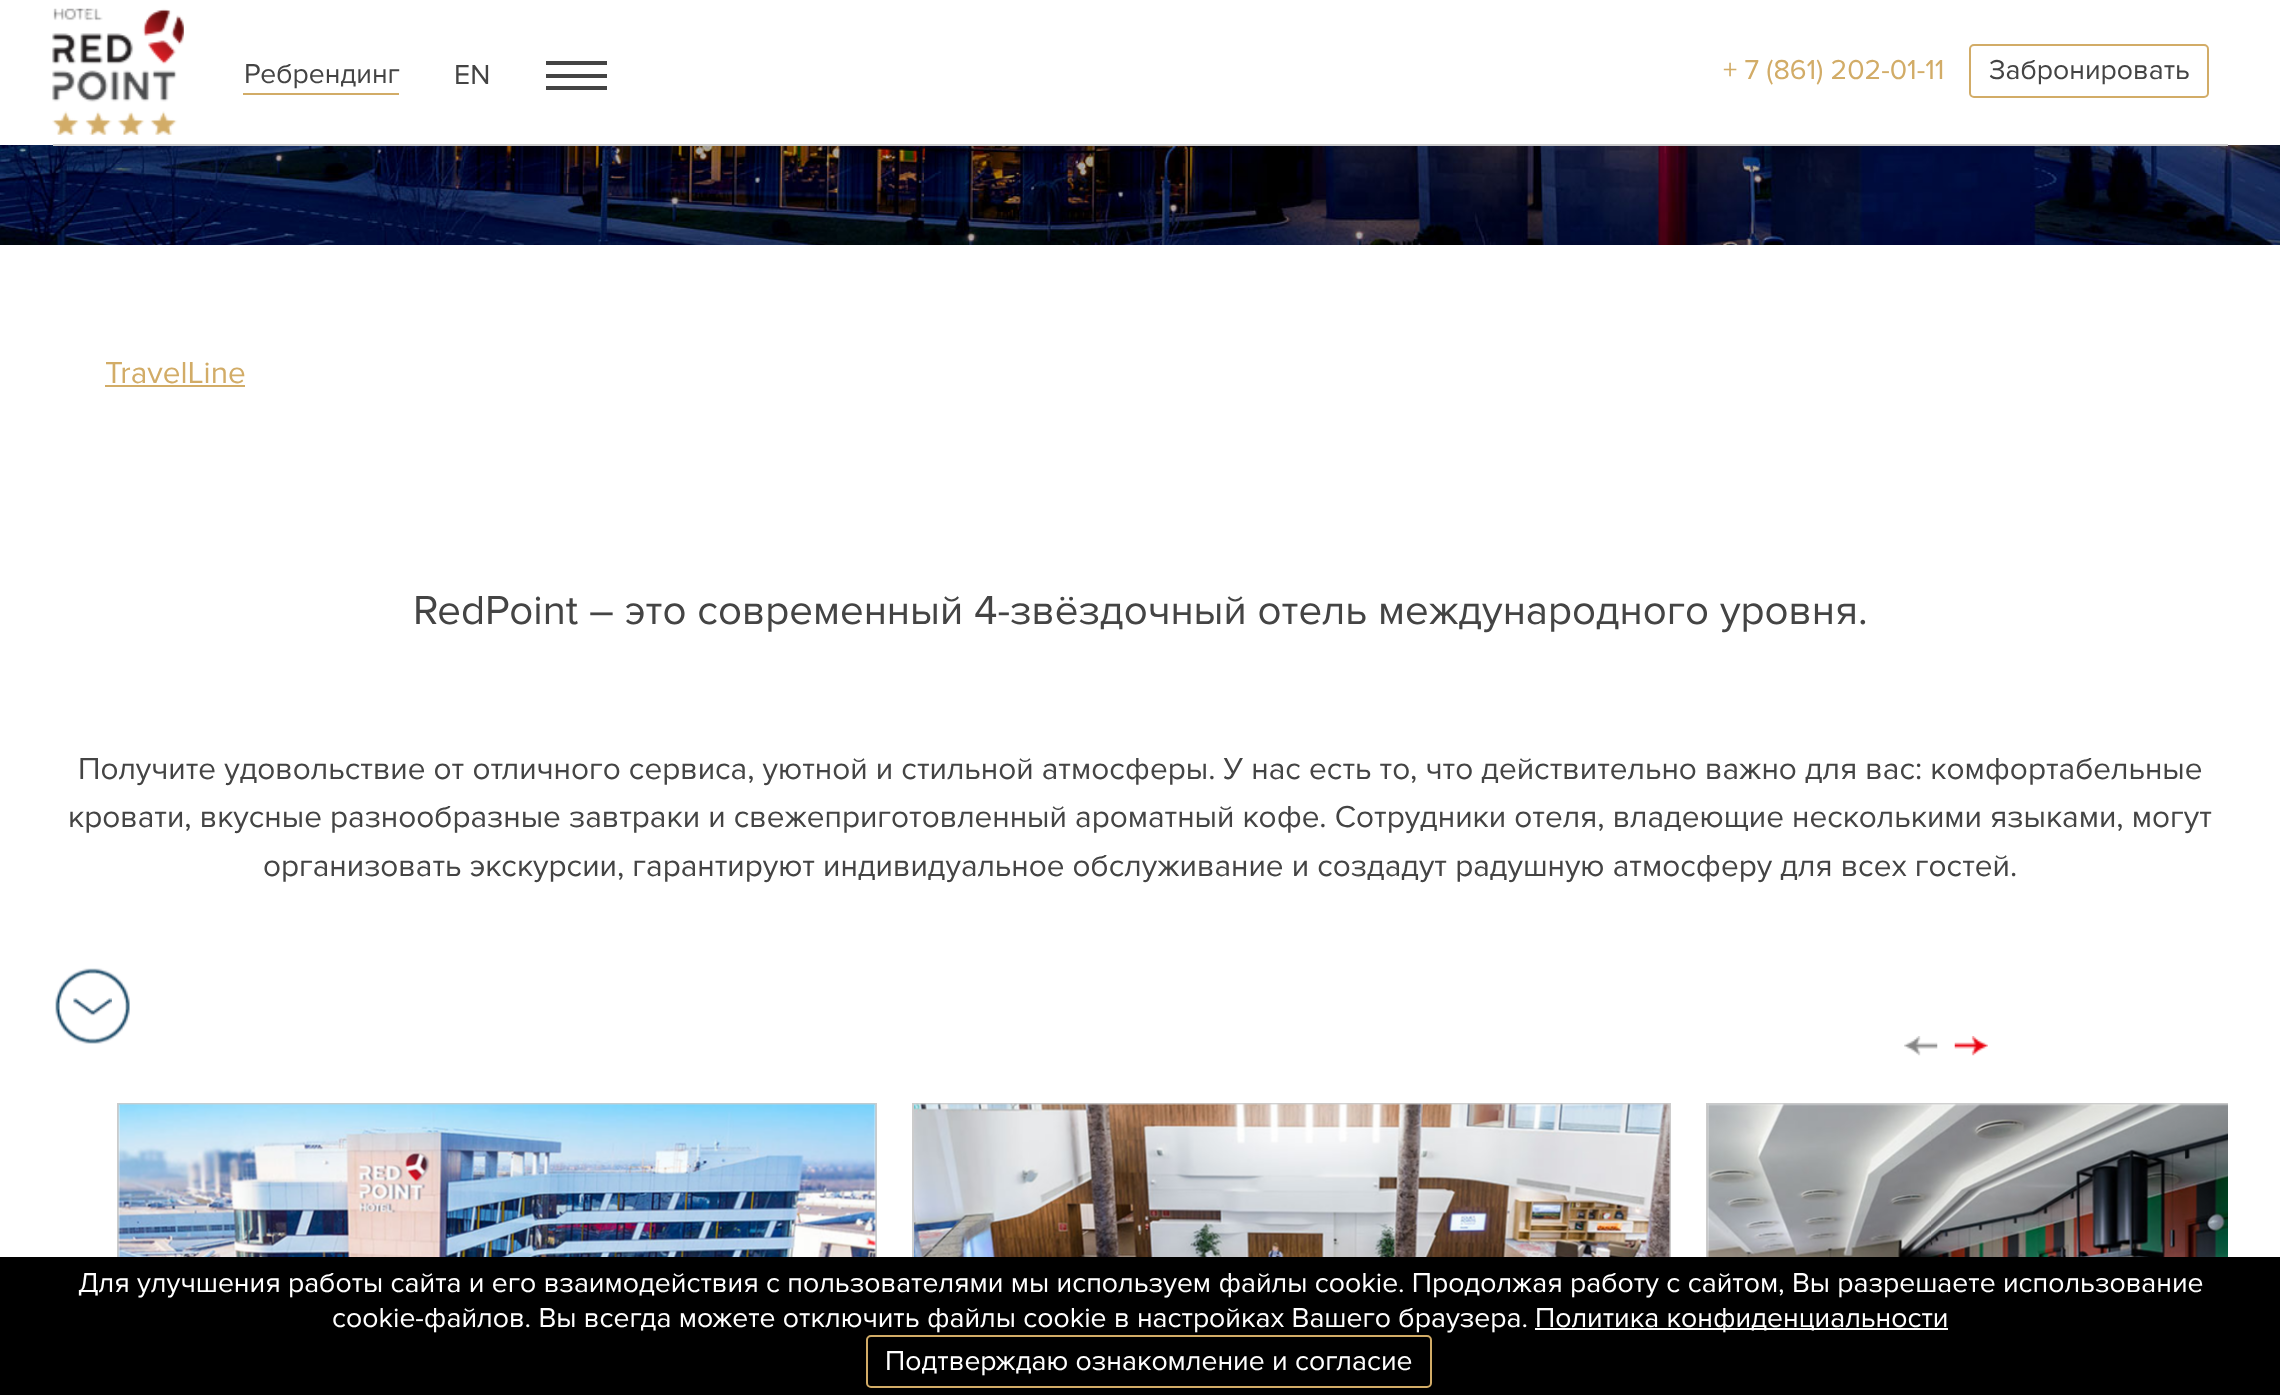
<?xml version="1.0" encoding="UTF-8"?>
<svg xmlns="http://www.w3.org/2000/svg" width="2280" height="1395">
    <defs>
        <clipPath id="clip1"><rect x="117" y="1103" width="2111" height="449"/></clipPath>
    </defs>
    <rect width="100%" height="100%" fill="#FFFFFF"/>
    <image x="0" y="145" width="2280" height="100" href="img_04.png"/>
    <rect x="53" y="144" width="2175" height="2" fill="#CCCCCC"/>
    <image x="52" y="8" width="132" height="127" href="img_01.png"/>
    <rect x="243" y="93" width="156" height="2" fill="#D2AC67"/>
    <text x="244" y="83" font-family="Proxima Nova" font-size="28.35" fill="#444444">Ребрендинг</text>
    <text x="454" y="84" font-family="Proxima Nova" font-size="28.35" fill="#444444">EN</text>
    <rect x="546" y="74" width="61" height="4" fill="#444444"/>
    <rect x="546" y="61" width="61" height="4" fill="#444444"/>
    <rect x="546" y="86" width="61" height="4" fill="#444444"/>
    <text x="1723" y="79" font-family="Proxima Nova" font-size="28.35" fill="#D2AC67">+ 7 (861) 202-01-11</text>
    <rect x="1970" y="45" width="238" height="52" rx="4" fill="none" stroke="#D2AC67" stroke-width="2"/>
    <text x="1989" y="79" font-family="Proxima Nova" font-size="28.35" fill="#444444">Забронировать</text>
    <image x="55" y="968" width="75" height="76" href="img_02.png"/>
    <image x="73" y="998" width="39" height="18" href="img_03.png"/>
    <text x="105" y="383" font-family="Proxima Nova" font-size="31.5" fill="#D2AC67">TravelLine</text>
    <rect x="105" y="385" width="140" height="2" fill="#D2AC67"/>
    <text x="413" y="624" font-family="Proxima Nova" font-size="42" fill="#444444">RedPoint – это современный 4-звёздочный отель международного уровня.</text>
    <text x="78" y="779" font-family="Proxima Nova" font-size="31.5" fill="#444444">Получите удовольствие от отличного сервиса, уютной и стильной атмосферы. У нас есть то, что действительно важно для вас: комфортабельные</text>
    <text x="68" y="827" font-family="Proxima Nova" font-size="31.5" fill="#444444">кровати, вкусные разнообразные завтраки и свежеприготовленный ароматный кофе. Сотрудники отеля, владеющие несколькими языками, могут</text>
    <text x="263" y="876" font-family="Proxima Nova" font-size="31.5" fill="#444444">организовать экскурсии, гарантируют индивидуальное обслуживание и создадут радушную атмосферу для всех гостей.</text>
    <image x="1904" y="1036" width="34" height="20" href="img_05.png"/>
    <image x="1954" y="1036" width="34" height="20" href="img_06.png"/>
    <rect x="118" y="1104" width="758" height="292" fill="none" stroke="#CCCCCC" stroke-width="2"/>
    <image x="118" y="1103" width="758" height="154" href="img_07.png"/>
    <rect x="913" y="1104" width="757" height="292" fill="none" stroke="#CCCCCC" stroke-width="2"/>
    <image x="914" y="1103" width="756" height="154" href="img_08.png"/>
    <g clip-path="url(#clip1)">
        <rect x="1707" y="1104" width="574" height="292" fill="none" stroke="#CCCCCC" stroke-width="2"/>
    </g>
    <image x="1707" y="1103" width="521" height="154" href="img_09.png"/>
    <rect x="0" y="1257" width="2280" height="138" fill="#000000"/>
    <text x="78" y="1292" font-family="Proxima Nova" font-size="28.35" fill="#FFFFFF">Для улучшения работы сайта и его взаимодействия с пользователями мы используем файлы cookie. Продолжая работу с сайтом, Вы разрешаете использование</text>
    <text x="332" y="1327" font-family="Proxima Nova" font-size="28.35" fill="#FFFFFF">cookie-файлов. Вы всегда можете отключить файлы cookie в настройках Вашего браузера.</text>
    <rect x="1535" y="1328" width="413" height="2" fill="#FFFFFF"/>
    <text x="1535" y="1327" font-family="Proxima Nova" font-size="28.35" fill="#FFFFFF">Политика конфиденциальности</text>
    <rect x="867" y="1336" width="564" height="51" rx="4" fill="none" stroke="#D2AC67" stroke-width="2"/>
    <text x="885" y="1370" font-family="Proxima Nova" font-size="28.35" fill="#FFFFFF">Подтверждаю ознакомление и согласие</text>
</svg>
